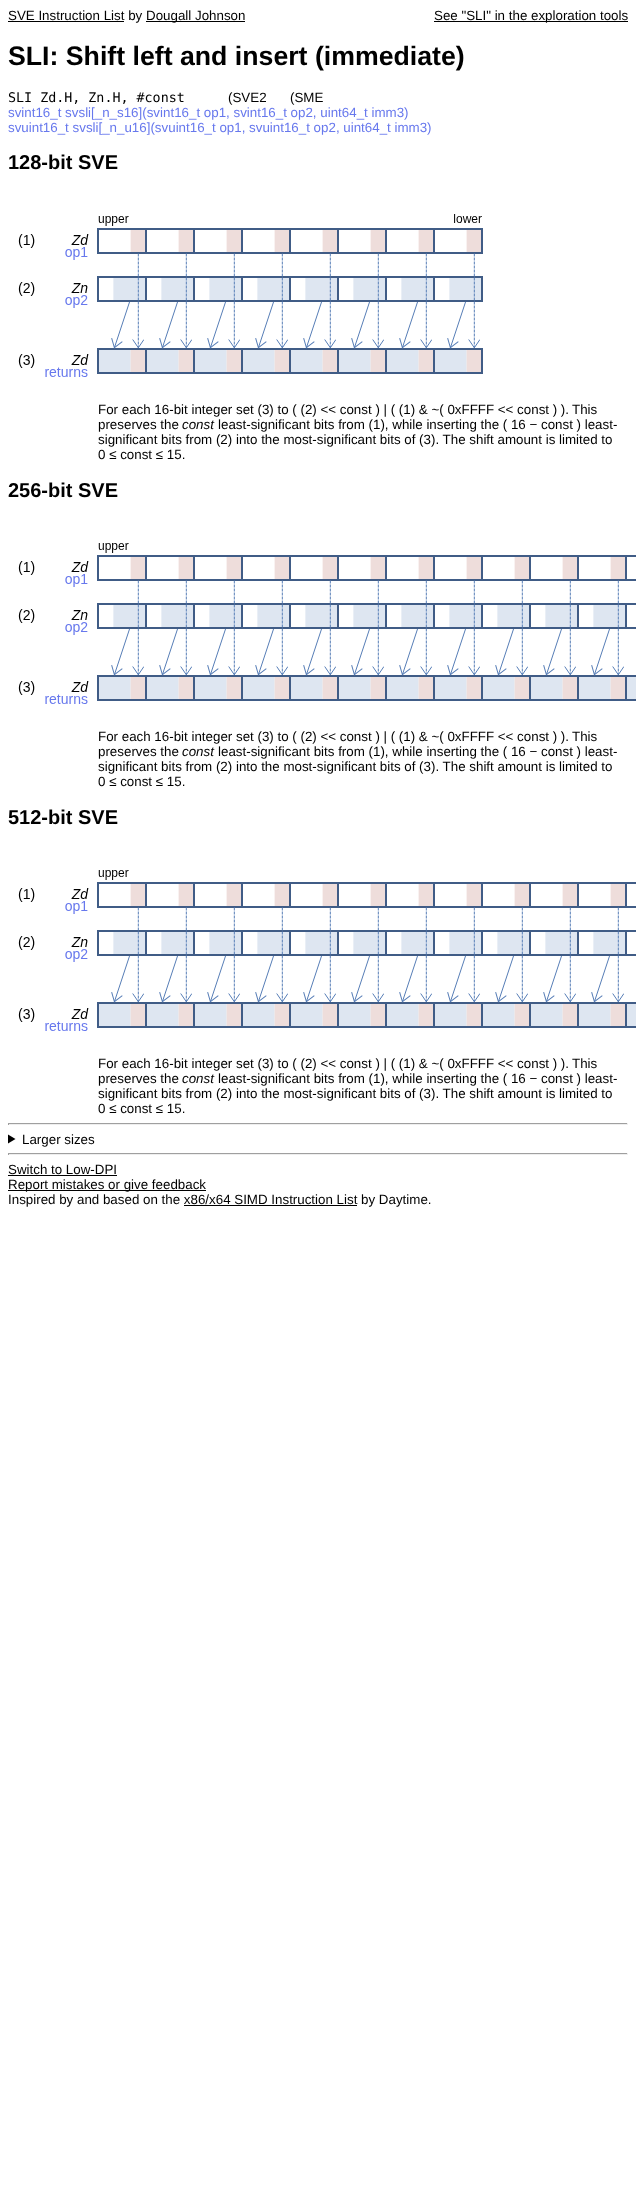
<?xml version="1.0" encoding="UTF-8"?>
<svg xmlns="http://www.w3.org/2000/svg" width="636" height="2202">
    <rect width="100%" height="100%" fill="#FFFFFF"/>
    <rect x="8" y="21" width="116" height="1" fill="#000000"/>
    <text x="8" y="20" font-family="Liberation Sans" font-size="13.35" fill="#000000">SVE Instruction List by</text>
    <rect x="146" y="21" width="99" height="1" fill="#000000"/>
    <text x="146" y="20" font-family="Liberation Sans" font-size="13.35" fill="#000000">Dougall Johnson</text>
    <rect x="434" y="21" width="194" height="1" fill="#000000"/>
    <text x="434" y="20" font-family="Liberation Sans" font-size="13.35" fill="#000000">See "SLI" in the exploration tools</text>
    <text x="8" y="65" font-family="Liberation Sans" font-size="26.7" font-weight="700" fill="#000000">SLI: Shift left and insert (immediate)</text>
    <text x="8" y="102" font-family="DejaVu Sans Mono" font-size="13.35" fill="#000000">SLI Zd.H, Zn.H, #const</text>
    <text x="228" y="102" font-family="Liberation Sans" font-size="13.35" fill="#000000">(SVE2</text>
    <text x="290" y="102" font-family="Liberation Sans" font-size="13.35" fill="#000000">(SME</text>
    <text font-family="Liberation Sans" font-size="13.35" fill="#6778ED">
        <tspan x="8" y="117">svint16_t svsli[_n_s16](svint16_t op1, svint16_t op2, uint64_t imm3)</tspan>
        <tspan x="8" y="132">svuint16_t svsli[_n_u16](svuint16_t op1, svuint16_t op2, uint64_t imm3)</tspan>
    </text>
    <text x="8" y="169" font-family="Liberation Sans" font-size="20" font-weight="700" fill="#000000">128-bit SVE</text>
    <image x="18" y="214" width="465" height="163" href="img_01.png"/>
    <text x="98" y="414" font-family="Liberation Sans" font-size="13.35" fill="#000000">For each 16-bit integer set (3) to ( (2) &lt;&lt; const ) | ( (1) &amp; ~( 0xFFFF &lt;&lt; const ) ).</text>
    <text x="572" y="414" font-family="Liberation Sans" font-size="13.35" fill="#000000">This</text>
    <text x="98" y="429" font-family="Liberation Sans" font-size="13.35" fill="#000000">preserves the</text>
    <text x="182" y="429" font-family="Liberation Sans" font-size="13.35" font-style="italic" fill="#000000">const</text>
    <text x="218" y="429" font-family="Liberation Sans" font-size="13.35" fill="#000000">least-significant bits from (1), while inserting the ( 16 − const ) least-</text>
    <text font-family="Liberation Sans" font-size="13.35" fill="#000000">
        <tspan x="98" y="444">significant bits from (2) into the most-significant bits of (3). The shift amount is limited to</tspan>
        <tspan x="98" y="459">0 ≤ const ≤ 15.</tspan>
    </text>
    <text x="8" y="497" font-family="Liberation Sans" font-size="20" font-weight="700" fill="#000000">256-bit SVE</text>
    <image x="18" y="543" width="618" height="161" href="img_02.png"/>
    <text x="98" y="741" font-family="Liberation Sans" font-size="13.35" fill="#000000">For each 16-bit integer set (3) to ( (2) &lt;&lt; const ) | ( (1) &amp; ~( 0xFFFF &lt;&lt; const ) ).</text>
    <text x="572" y="741" font-family="Liberation Sans" font-size="13.35" fill="#000000">This</text>
    <text x="98" y="756" font-family="Liberation Sans" font-size="13.35" fill="#000000">preserves the</text>
    <text x="182" y="756" font-family="Liberation Sans" font-size="13.35" font-style="italic" fill="#000000">const</text>
    <text x="218" y="756" font-family="Liberation Sans" font-size="13.35" fill="#000000">least-significant bits from (1), while inserting the ( 16 − const ) least-</text>
    <text font-family="Liberation Sans" font-size="13.35" fill="#000000">
        <tspan x="98" y="771">significant bits from (2) into the most-significant bits of (3). The shift amount is limited to</tspan>
        <tspan x="98" y="786">0 ≤ const ≤ 15.</tspan>
    </text>
    <text x="8" y="824" font-family="Liberation Sans" font-size="20" font-weight="700" fill="#000000">512-bit SVE</text>
    <image x="18" y="870" width="618" height="161" href="img_02.png"/>
    <text x="98" y="1068" font-family="Liberation Sans" font-size="13.35" fill="#000000">For each 16-bit integer set (3) to ( (2) &lt;&lt; const ) | ( (1) &amp; ~( 0xFFFF &lt;&lt; const ) ).</text>
    <text x="572" y="1068" font-family="Liberation Sans" font-size="13.35" fill="#000000">This</text>
    <text x="98" y="1083" font-family="Liberation Sans" font-size="13.35" fill="#000000">preserves the</text>
    <text x="182" y="1083" font-family="Liberation Sans" font-size="13.35" font-style="italic" fill="#000000">const</text>
    <text x="218" y="1083" font-family="Liberation Sans" font-size="13.35" fill="#000000">least-significant bits from (1), while inserting the ( 16 − const ) least-</text>
    <text font-family="Liberation Sans" font-size="13.35" fill="#000000">
        <tspan x="98" y="1098">significant bits from (2) into the most-significant bits of (3). The shift amount is limited to</tspan>
        <tspan x="98" y="1113">0 ≤ const ≤ 15.</tspan>
    </text>
    <rect x="8" y="1123" width="620" height="1" fill="#9F9F9F"/>
    <rect x="627" y="1123" width="1" height="2" fill="#EEEEEE"/>
    <rect x="8" y="1124" width="620" height="1" fill="#EEEEEE"/>
    <rect x="8" y="1123" width="1" height="2" fill="#9F9F9F"/>
    <path d="M 8 1134.5 L 15.5 1139 L 8 1143.5 Z" fill="#000000"/>
    <text x="22" y="1144" font-family="Liberation Sans" font-size="13.35" fill="#000000">Larger sizes</text>
    <rect x="8" y="1153" width="620" height="1" fill="#9F9F9F"/>
    <rect x="627" y="1153" width="1" height="2" fill="#EEEEEE"/>
    <rect x="8" y="1154" width="620" height="1" fill="#EEEEEE"/>
    <rect x="8" y="1153" width="1" height="2" fill="#9F9F9F"/>
    <text x="8" y="1174" font-family="Liberation Sans" font-size="13.35" fill="#000000">Switch to Low-DPI</text>
    <rect x="8" y="1175" width="109" height="1" fill="#000000"/>
    <rect x="8" y="1190" width="198" height="1" fill="#000000"/>
    <text font-family="Liberation Sans" font-size="13.35" fill="#000000">
        <tspan x="8" y="1189">Report mistakes or give feedback</tspan>
        <tspan x="8" y="1204">Inspired by and based on the x86/x64 SIMD Instruction List by Daytime.</tspan>
    </text>
    <rect x="184" y="1205" width="173" height="1" fill="#000000"/>
</svg>
